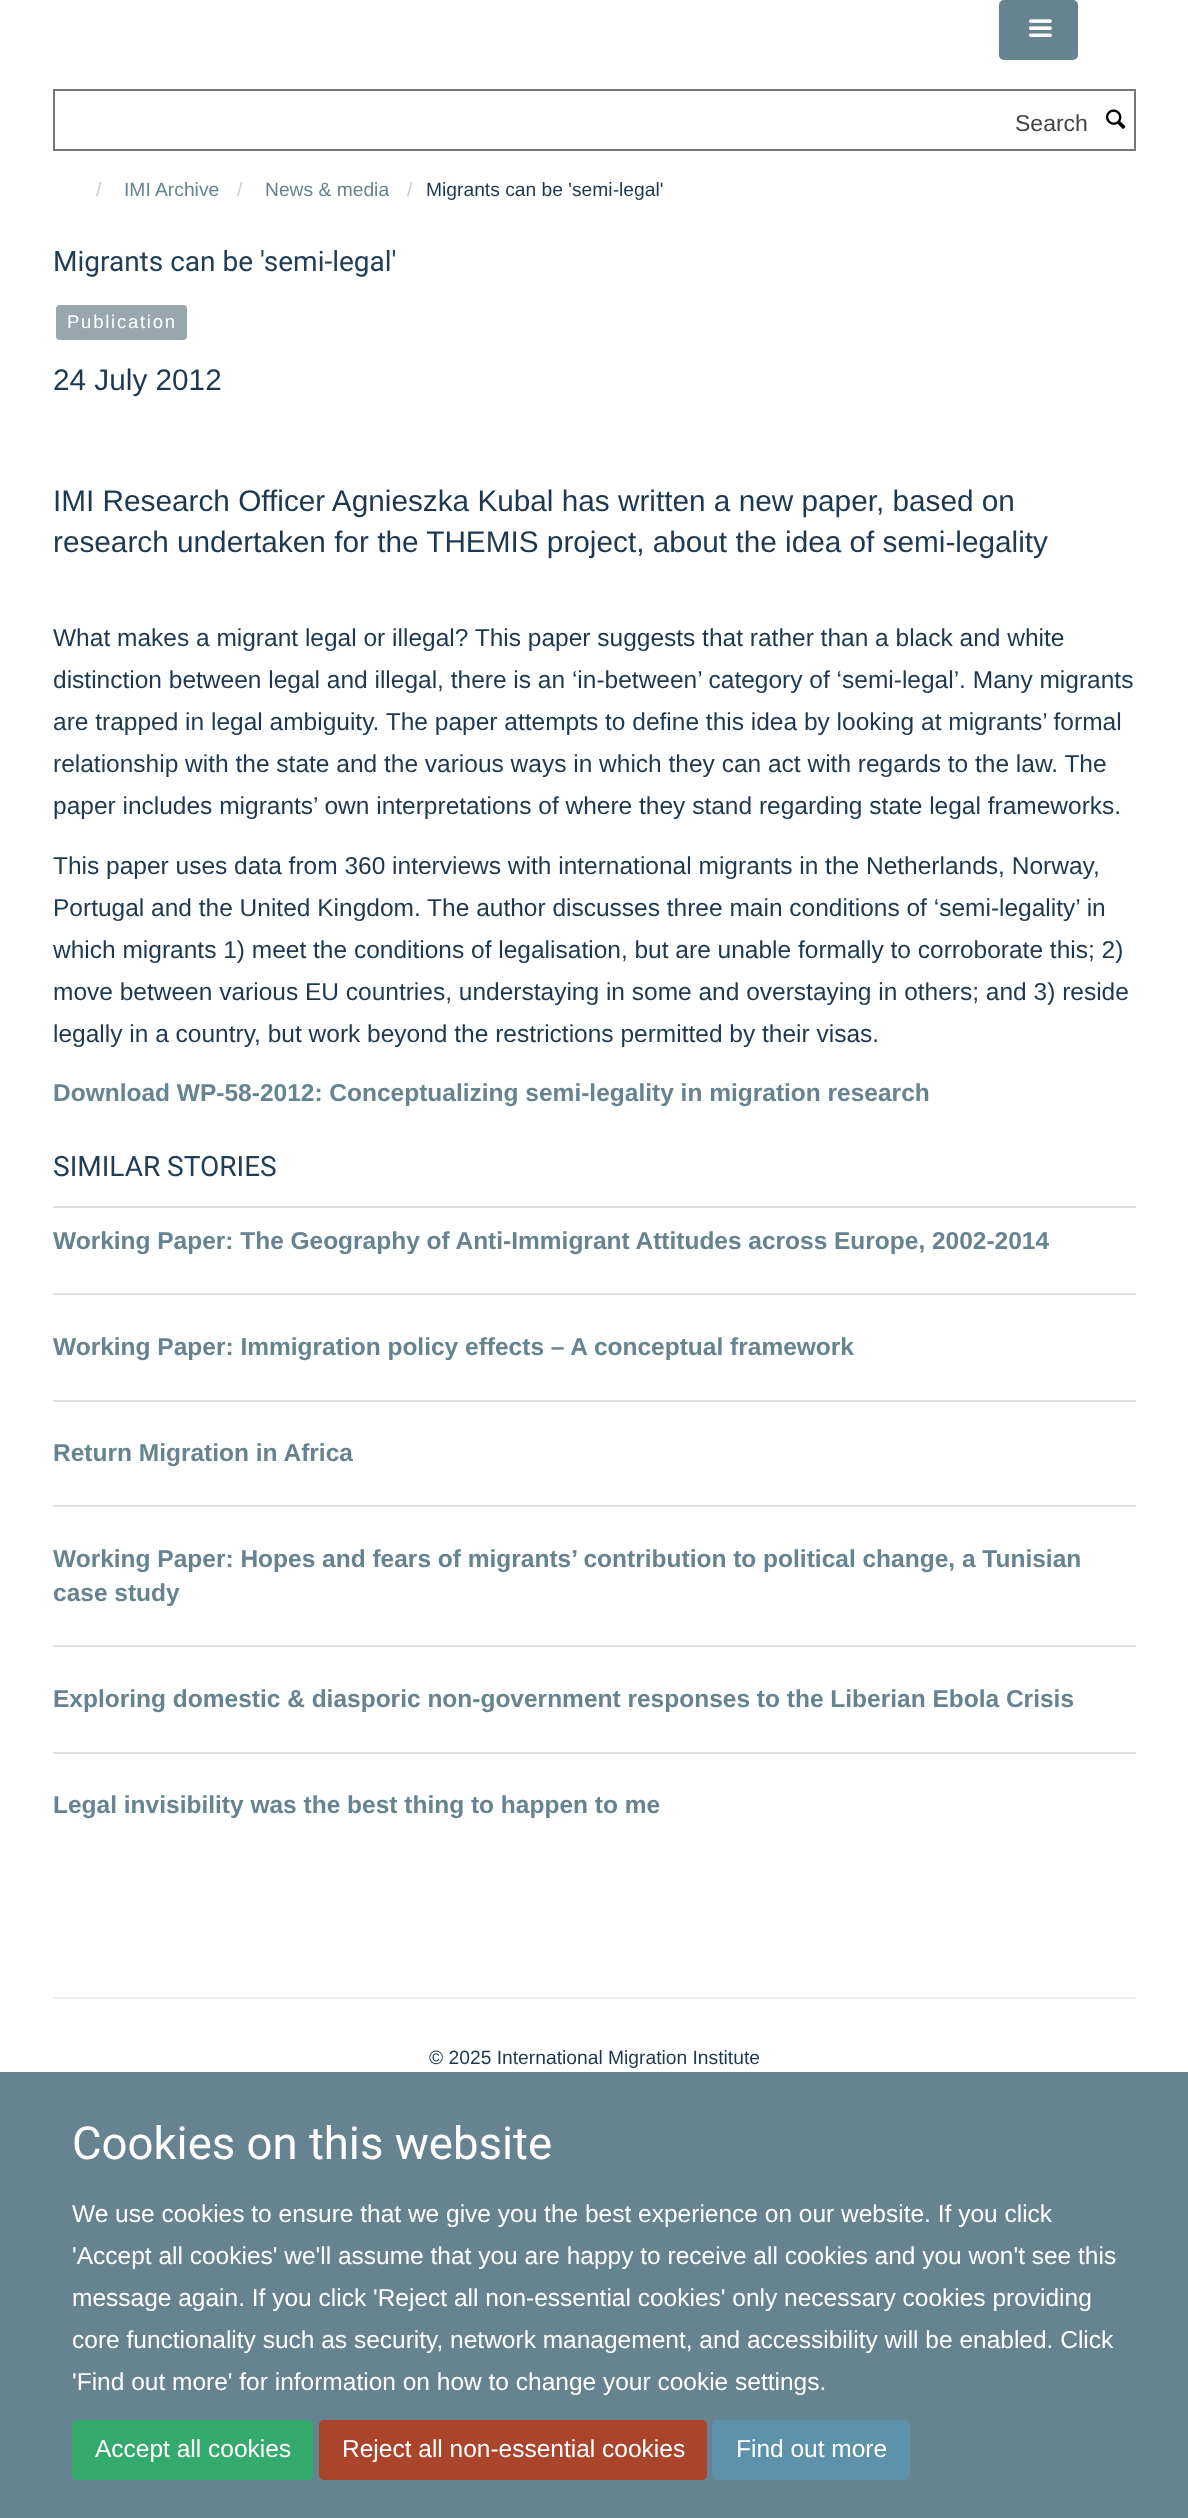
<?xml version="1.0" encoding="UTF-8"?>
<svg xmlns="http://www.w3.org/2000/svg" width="1188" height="2518">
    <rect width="100%" height="100%" fill="#FFFFFF"/>
    <rect x="1000" y="1" width="77" height="58" rx="4" fill="#668391" stroke="#668391" stroke-width="2"/>
    <image x="1028" y="19" width="24" height="18" href="img_01.png"/>
    <rect x="54" y="90" width="1081" height="60" fill="none" stroke="#777777" stroke-width="2"/>
    <text x="1015" y="131" font-family="Liberation Sans" font-size="23" fill="#444444">Search</text>
    <image x="1106" y="109" width="20" height="20" href="img_02.png"/>
    <text x="96" y="196" font-family="Liberation Sans" font-size="19.25" fill="#CCCCCC">/</text>
    <text x="124" y="196" font-family="Liberation Sans" font-size="19.25" fill="#668391">IMI Archive</text>
    <text x="237" y="196" font-family="Liberation Sans" font-size="19.25" fill="#CCCCCC">/</text>
    <text x="265" y="196" font-family="Liberation Sans" font-size="19.25" fill="#668391">News &amp; media</text>
    <text x="407" y="196" font-family="Liberation Sans" font-size="19.25" fill="#CCCCCC">/</text>
    <text x="426" y="196" font-family="Liberation Sans" font-size="19.25" fill="#1D3850">Migrants can be 'semi-legal'</text>
    <text x="53" y="271" font-family="Roboto" font-size="28" fill="#203E58">Migrants can be 'semi-legal'</text>
    <rect x="56" y="305" width="131" height="35" rx="4" fill="#98A7AE"/>
    <text x="67" y="328" font-family="Liberation Sans" font-size="18.5" letter-spacing="1.75" fill="#FFFFFF">Publication</text>
    <text x="53" y="390" font-family="Liberation Sans" font-size="29.75" fill="#1D3850">24 July 2012</text>
    <text font-family="Liberation Sans" font-size="29.75" fill="#1D3850">
        <tspan x="53" y="511">IMI Research Officer Agnieszka Kubal has written a new paper, based on</tspan>
        <tspan x="53" y="552">research undertaken for the THEMIS project, about the idea of semi-legality</tspan>
    </text>
    <text font-family="Liberation Sans" font-size="24.5" fill="#1D3850">
        <tspan x="53" y="646">What makes a migrant legal or illegal? This paper suggests that rather than a black and white</tspan>
        <tspan x="53" y="688">distinction between legal and illegal, there is an ‘in-between’ category of ‘semi-legal’. Many migrants</tspan>
        <tspan x="53" y="730">are trapped in legal ambiguity. The paper attempts to define this idea by looking at migrants’ formal</tspan>
        <tspan x="53" y="772">relationship with the state and the various ways in which they can act with regards to the law. The</tspan>
        <tspan x="53" y="814">paper includes migrants’ own interpretations of where they stand regarding state legal frameworks.</tspan>
    </text>
    <text font-family="Liberation Sans" font-size="24.5" fill="#1D3850">
        <tspan x="53" y="874">This paper uses data from 360 interviews with international migrants in the Netherlands, Norway,</tspan>
        <tspan x="53" y="916">Portugal and the United Kingdom. The author discusses three main conditions of ‘semi-legality’ in</tspan>
        <tspan x="53" y="958">which migrants 1) meet the conditions of legalisation, but are unable formally to corroborate this; 2)</tspan>
        <tspan x="53" y="1000">move between various EU countries, understaying in some and overstaying in others; and 3) reside</tspan>
        <tspan x="53" y="1042">legally in a country, but work beyond the restrictions permitted by their visas.</tspan>
    </text>
    <text x="53" y="1101" font-family="Liberation Sans" font-size="24.5" font-weight="700" fill="#668391">Download WP-58-2012: Conceptualizing semi-legality in migration research</text>
    <rect x="53" y="1206" width="1083" height="2" fill="#DDDDDD"/>
    <text x="53" y="1176" font-family="Roboto" font-size="28" fill="#203E58">SIMILAR STORIES</text>
    <rect x="53" y="1293" width="1083" height="2" fill="#DFE1E4"/>
    <text x="53" y="1249" word-spacing="-0.1" font-family="Liberation Sans" font-size="24.5" font-weight="700" fill="#668391">Working Paper: The Geography of Anti-Immigrant Attitudes across Europe, 2002-2014</text>
    <rect x="53" y="1400" width="1083" height="2" fill="#DFE1E4"/>
    <text x="53" y="1355" font-family="Liberation Sans" font-size="24.5" font-weight="700" fill="#668391">Working Paper: Immigration policy effects – A conceptual framework</text>
    <rect x="53" y="1505" width="1083" height="2" fill="#DFE1E4"/>
    <text x="53" y="1461" font-family="Liberation Sans" font-size="24.5" font-weight="700" fill="#668391">Return Migration in Africa</text>
    <rect x="53" y="1645" width="1083" height="2" fill="#DFE1E4"/>
    <text font-family="Liberation Sans" font-size="24.5" font-weight="700" fill="#668391">
        <tspan x="53" y="1567">Working Paper: Hopes and fears of migrants’ contribution to political change, a Tunisian</tspan>
        <tspan x="53" y="1601">case study</tspan>
    </text>
    <rect x="53" y="1752" width="1083" height="2" fill="#DFE1E4"/>
    <text x="53" y="1707" font-family="Liberation Sans" font-size="24.5" font-weight="700" fill="#668391">Exploring domestic &amp; diasporic non-government responses to the Liberian Ebola Crisis</text>
    <text x="53" y="1813" font-family="Liberation Sans" font-size="24.5" font-weight="700" fill="#668391">Legal invisibility was the best thing to happen to me</text>
    <rect x="53" y="1997" width="1083" height="2" fill="#EEEEEE"/>
    <text x="429" y="2064" font-family="Liberation Sans" font-size="19.25" fill="#1D3850">© 2025 International Migration Institute</text>
    <rect x="0" y="2072" width="1188" height="446" fill="#668391"/>
    <text x="72" y="2159" font-family="Roboto" font-size="45.5" fill="#FFFFFF">Cookies on this website</text>
    <text font-family="Liberation Sans" font-size="24.5" fill="#FFFFFF">
        <tspan x="72" y="2222">We use cookies to ensure that we give you the best experience on our website. If you click</tspan>
        <tspan x="72" y="2264">'Accept all cookies' we'll assume that you are happy to receive all cookies and you won't see this</tspan>
        <tspan x="72" y="2306">message again. If you click 'Reject all non-essential cookies' only necessary cookies providing</tspan>
        <tspan x="72" y="2348">core functionality such as security, network management, and accessibility will be enabled. Click</tspan>
        <tspan x="72" y="2390">'Find out more' for information on how to change your cookie settings.</tspan>
    </text>
    <rect x="73" y="2421" width="239" height="58" rx="4" fill="#34AA6D" stroke="#34AA6D" stroke-width="2"/>
    <text x="95" y="2457" font-family="Liberation Sans" font-size="24.5" fill="#FFFFFF">Accept all cookies</text>
    <rect x="320" y="2421" width="386" height="58" rx="4" fill="#AA442B" stroke="#AA442B" stroke-width="2"/>
    <text x="342" y="2457" font-family="Liberation Sans" font-size="24.5" fill="#FFFFFF">Reject all non-essential cookies</text>
    <rect x="713" y="2421" width="196" height="58" rx="4" fill="#5D93AA" stroke="#5D93AA" stroke-width="2"/>
    <text x="736" y="2457" font-family="Liberation Sans" font-size="24.5" fill="#FFFFFF">Find out more</text>
</svg>
